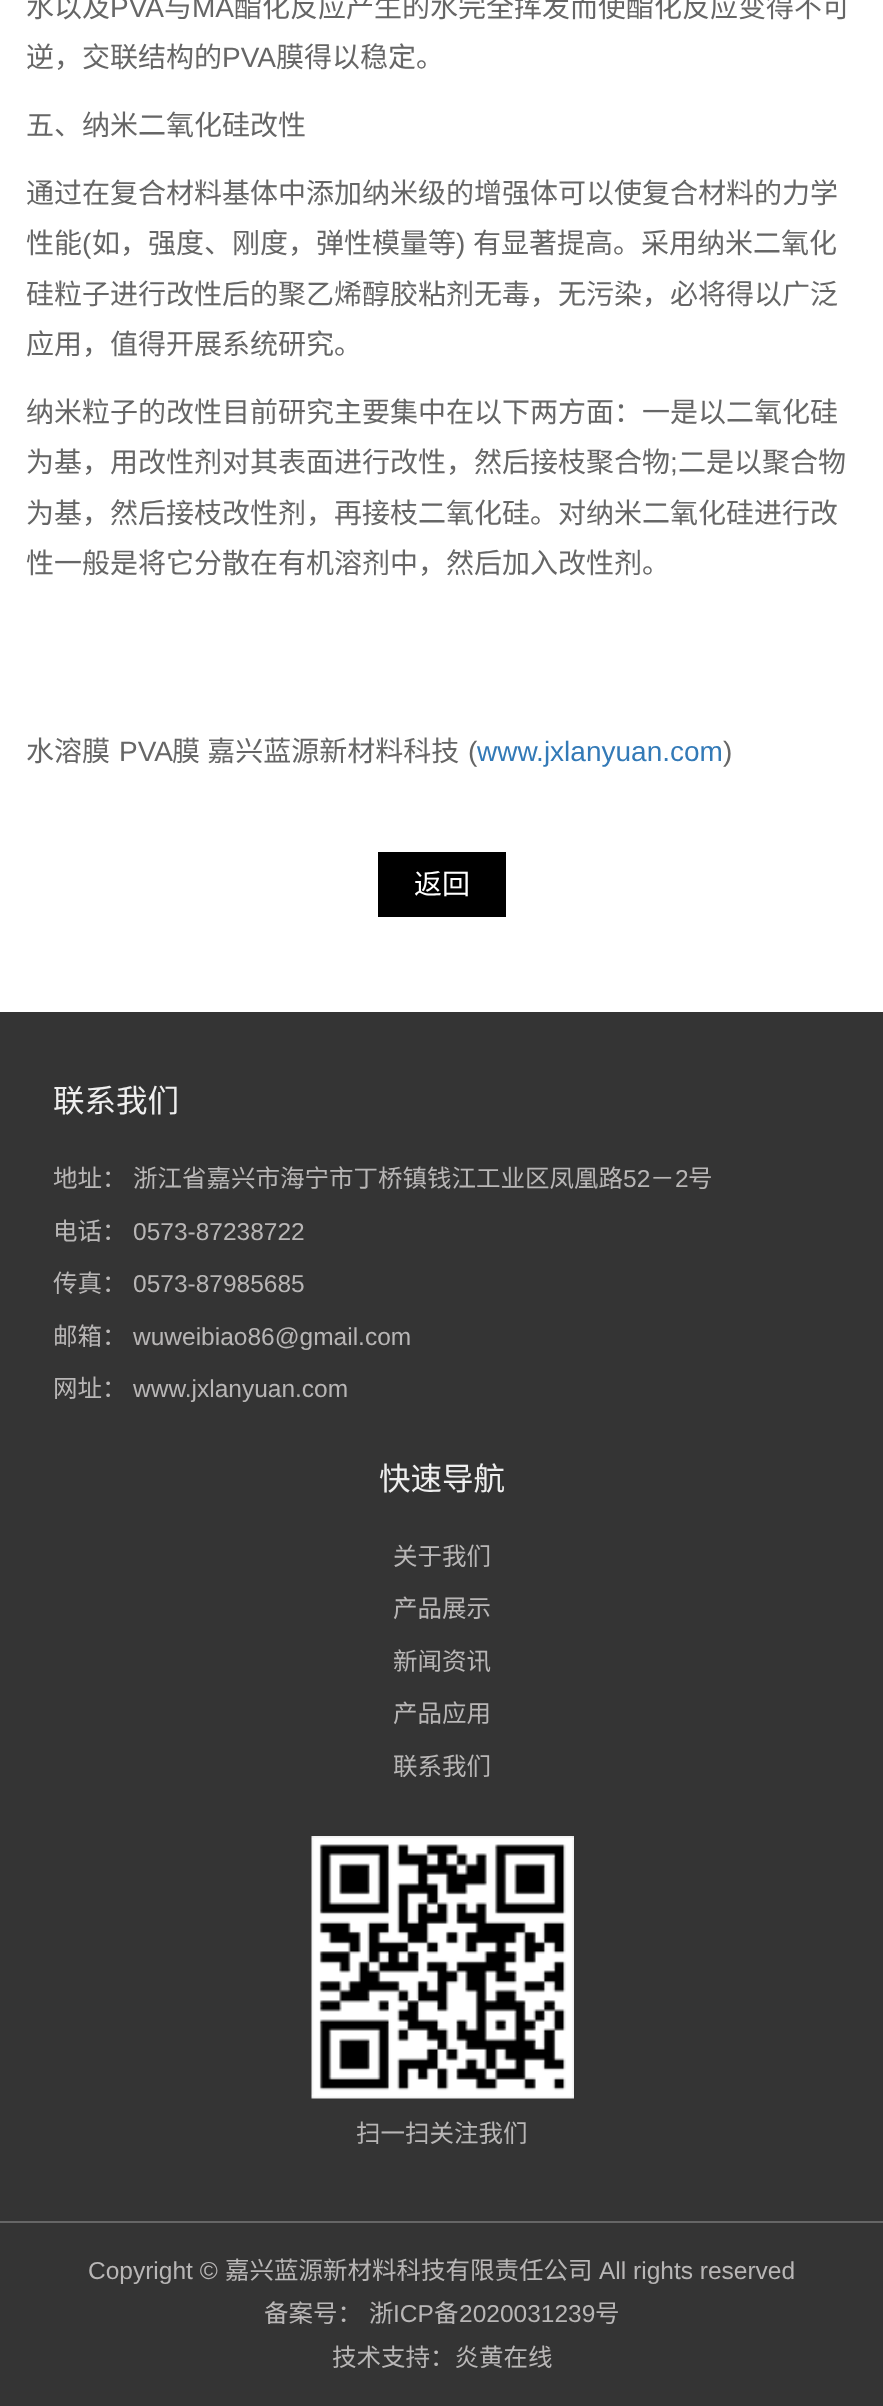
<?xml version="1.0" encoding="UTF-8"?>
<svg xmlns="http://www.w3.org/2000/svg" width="883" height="2406">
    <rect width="100%" height="100%" fill="#FFFFFF"/>
    <text x="26" y="17" font-family="Noto Sans CJK SC" font-size="28" fill="#666666">水以及</text>
    <text x="110" y="17" font-family="Liberation Sans" font-size="28" fill="#666666">PVA</text>
    <text x="164" y="17" font-family="Noto Sans CJK SC" font-size="28" fill="#666666">与</text>
    <text x="192" y="17" font-family="Liberation Sans" font-size="28" fill="#666666">MA</text>
    <text x="234" y="17" font-family="Noto Sans CJK SC" font-size="28" fill="#666666">酯化反应产生的水完全挥发而使酯化反应变得不可</text>
    <text x="26" y="67" font-family="Noto Sans CJK SC" font-size="28" fill="#666666">逆，交联结构的</text>
    <text x="222" y="67" font-family="Liberation Sans" font-size="28" fill="#666666">PVA</text>
    <text x="276" y="67" font-family="Noto Sans CJK SC" font-size="28" fill="#666666">膜得以稳定。</text>
    <text x="26" y="135" font-family="Noto Sans CJK SC" font-size="28" fill="#666666">五、纳米二氧化硅改性</text>
    <text font-family="Noto Sans CJK SC" font-size="28" fill="#666666">
        <tspan x="26" y="203">通过在复合材料基体中添加纳米级的增强体可以使复合材料的力学</tspan>
        <tspan x="26" y="253">性能</tspan>
    </text>
    <text x="82" y="253" font-family="Liberation Sans" font-size="28" fill="#666666">(</text>
    <text x="92" y="253" font-family="Noto Sans CJK SC" font-size="28" fill="#666666">如，强度、刚度，弹性模量等</text>
    <text x="456" y="253" font-family="Liberation Sans" font-size="28" fill="#666666">)</text>
    <text x="473" y="253" font-family="Noto Sans CJK SC" font-size="28" fill="#666666">有显著提高。采用纳米二氧化</text>
    <text font-family="Noto Sans CJK SC" font-size="28" fill="#666666">
        <tspan x="26" y="304">硅粒子进行改性后的聚乙烯醇胶粘剂无毒，无污染，必将得以广泛</tspan>
        <tspan x="26" y="354">应用，值得开展系统研究。</tspan>
    </text>
    <text font-family="Noto Sans CJK SC" font-size="28" fill="#666666">
        <tspan x="26" y="422">纳米粒子的改性目前研究主要集中在以下两方面：一是以二氧化硅</tspan>
        <tspan x="26" y="472">为基，用改性剂对其表面进行改性，然后接枝聚合物</tspan>
    </text>
    <text x="670" y="472" font-family="Liberation Sans" font-size="28" fill="#666666">;</text>
    <text x="678" y="472" font-family="Noto Sans CJK SC" font-size="28" fill="#666666">二是以聚合物</text>
    <text font-family="Noto Sans CJK SC" font-size="28" fill="#666666">
        <tspan x="26" y="523">为基，然后接枝改性剂，再接枝二氧化硅。对纳米二氧化硅进行改</tspan>
        <tspan x="26" y="573">性一般是将它分散在有机溶剂中，然后加入改性剂。</tspan>
    </text>
    <text x="26" y="761" font-family="Noto Sans CJK SC" font-size="28" fill="#666666">水溶膜</text>
    <text x="119" y="761" font-family="Liberation Sans" font-size="28" fill="#666666">PVA</text>
    <text x="172" y="761" word-spacing="1" font-family="Noto Sans CJK SC" font-size="28" fill="#666666">膜 嘉兴蓝源新材料科技</text>
    <text x="468" y="761" font-family="Liberation Sans" font-size="28" fill="#666666">(</text>
    <text x="477" y="761" font-family="Liberation Sans" font-size="28" fill="#337AB7">www.jxlanyuan.com</text>
    <text x="723" y="761" font-family="Liberation Sans" font-size="28" fill="#666666">)</text>
    <rect x="378" y="852" width="128" height="65" fill="#000000"/>
    <text x="414" y="894" font-family="Noto Sans CJK SC" font-size="28" fill="#FFFFFF">返回</text>
    <rect x="0" y="1012" width="883" height="1209" fill="#343434"/>
    <text x="53" y="1112" font-family="Noto Sans CJK SC" font-size="31.5" fill="#EEEEEE">联系我们</text>
    <text x="53" y="1187" word-spacing="1" font-family="Noto Sans CJK SC" font-size="24.5" fill="#B8B6B6">地址： 浙江省嘉兴市海宁市丁桥镇钱江工业区凤凰路</text>
    <text x="623" y="1187" font-family="Liberation Sans" font-size="24.5" fill="#B8B6B6">52</text>
    <text x="650" y="1187" font-family="Noto Sans CJK SC" font-size="24.5" fill="#B8B6B6">－</text>
    <text x="675" y="1187" font-family="Liberation Sans" font-size="24.5" fill="#B8B6B6">2</text>
    <text x="688" y="1187" font-family="Noto Sans CJK SC" font-size="24.5" fill="#B8B6B6">号</text>
    <text x="53" y="1240" font-family="Noto Sans CJK SC" font-size="24.5" fill="#B8B6B6">电话：</text>
    <text x="133" y="1240" font-family="Liberation Sans" font-size="24.5" fill="#B8B6B6">0573-87238722</text>
    <text x="53" y="1292" font-family="Noto Sans CJK SC" font-size="24.5" fill="#B8B6B6">传真：</text>
    <text x="133" y="1292" font-family="Liberation Sans" font-size="24.5" fill="#B8B6B6">0573-87985685</text>
    <text x="53" y="1345" font-family="Noto Sans CJK SC" font-size="24.5" fill="#B8B6B6">邮箱：</text>
    <text x="133" y="1345" font-family="Liberation Sans" font-size="24.5" fill="#B8B6B6">wuweibiao86@gmail.com</text>
    <text x="53" y="1397" font-family="Noto Sans CJK SC" font-size="24.5" fill="#B8B6B6">网址：</text>
    <text x="133" y="1397" font-family="Liberation Sans" font-size="24.5" fill="#B8B6B6">www.jxlanyuan.com</text>
    <text x="379" y="1490" font-family="Noto Sans CJK SC" font-size="31.5" fill="#EEEEEE">快速导航</text>
    <text x="393" y="1565" font-family="Noto Sans CJK SC" font-size="24.5" fill="#B8B6B6">关于我们</text>
    <text x="393" y="1617" font-family="Noto Sans CJK SC" font-size="24.5" fill="#B8B6B6">产品展示</text>
    <text x="393" y="1670" font-family="Noto Sans CJK SC" font-size="24.5" fill="#B8B6B6">新闻资讯</text>
    <text x="393" y="1722" font-family="Noto Sans CJK SC" font-size="24.5" fill="#B8B6B6">产品应用</text>
    <text x="393" y="1775" font-family="Noto Sans CJK SC" font-size="24.5" fill="#B8B6B6">联系我们</text>
    <image x="311" y="1836" width="263" height="263" href="img_01.png"/>
    <text x="356" y="2142" font-family="Noto Sans CJK SC" font-size="24.5" fill="#B8B6B6">扫一扫关注我们</text>
    <rect x="0" y="2223" width="883" height="183" fill="#343434"/>
    <rect x="0" y="2221" width="883" height="2" fill="#666666"/>
    <text x="88" y="2279" font-family="Liberation Sans" font-size="24.5" fill="#B8B6B6">Copyright ©</text>
    <text x="225" y="2279" font-family="Noto Sans CJK SC" font-size="24.5" fill="#B8B6B6">嘉兴蓝源新材料科技有限责任公司</text>
    <text x="599" y="2279" font-family="Liberation Sans" font-size="24.5" fill="#B8B6B6">All rights reserved</text>
    <text x="264" y="2322" font-family="Noto Sans CJK SC" font-size="24.5" fill="#B8B6B6">备案号：</text>
    <text x="369" y="2322" font-family="Noto Sans CJK SC" font-size="24.5" fill="#B8B6B6">浙</text>
    <text x="393" y="2322" font-family="Liberation Sans" font-size="24.5" fill="#B8B6B6">ICP</text>
    <text x="434" y="2322" font-family="Noto Sans CJK SC" font-size="24.5" fill="#B8B6B6">备</text>
    <text x="459" y="2322" font-family="Liberation Sans" font-size="24.5" fill="#B8B6B6">2020031239</text>
    <text x="595" y="2322" font-family="Noto Sans CJK SC" font-size="24.5" fill="#B8B6B6">号</text>
    <text x="332" y="2366" font-family="Noto Sans CJK SC" font-size="24.5" fill="#B8B6B6">技术支持：炎黄在线</text>
</svg>
